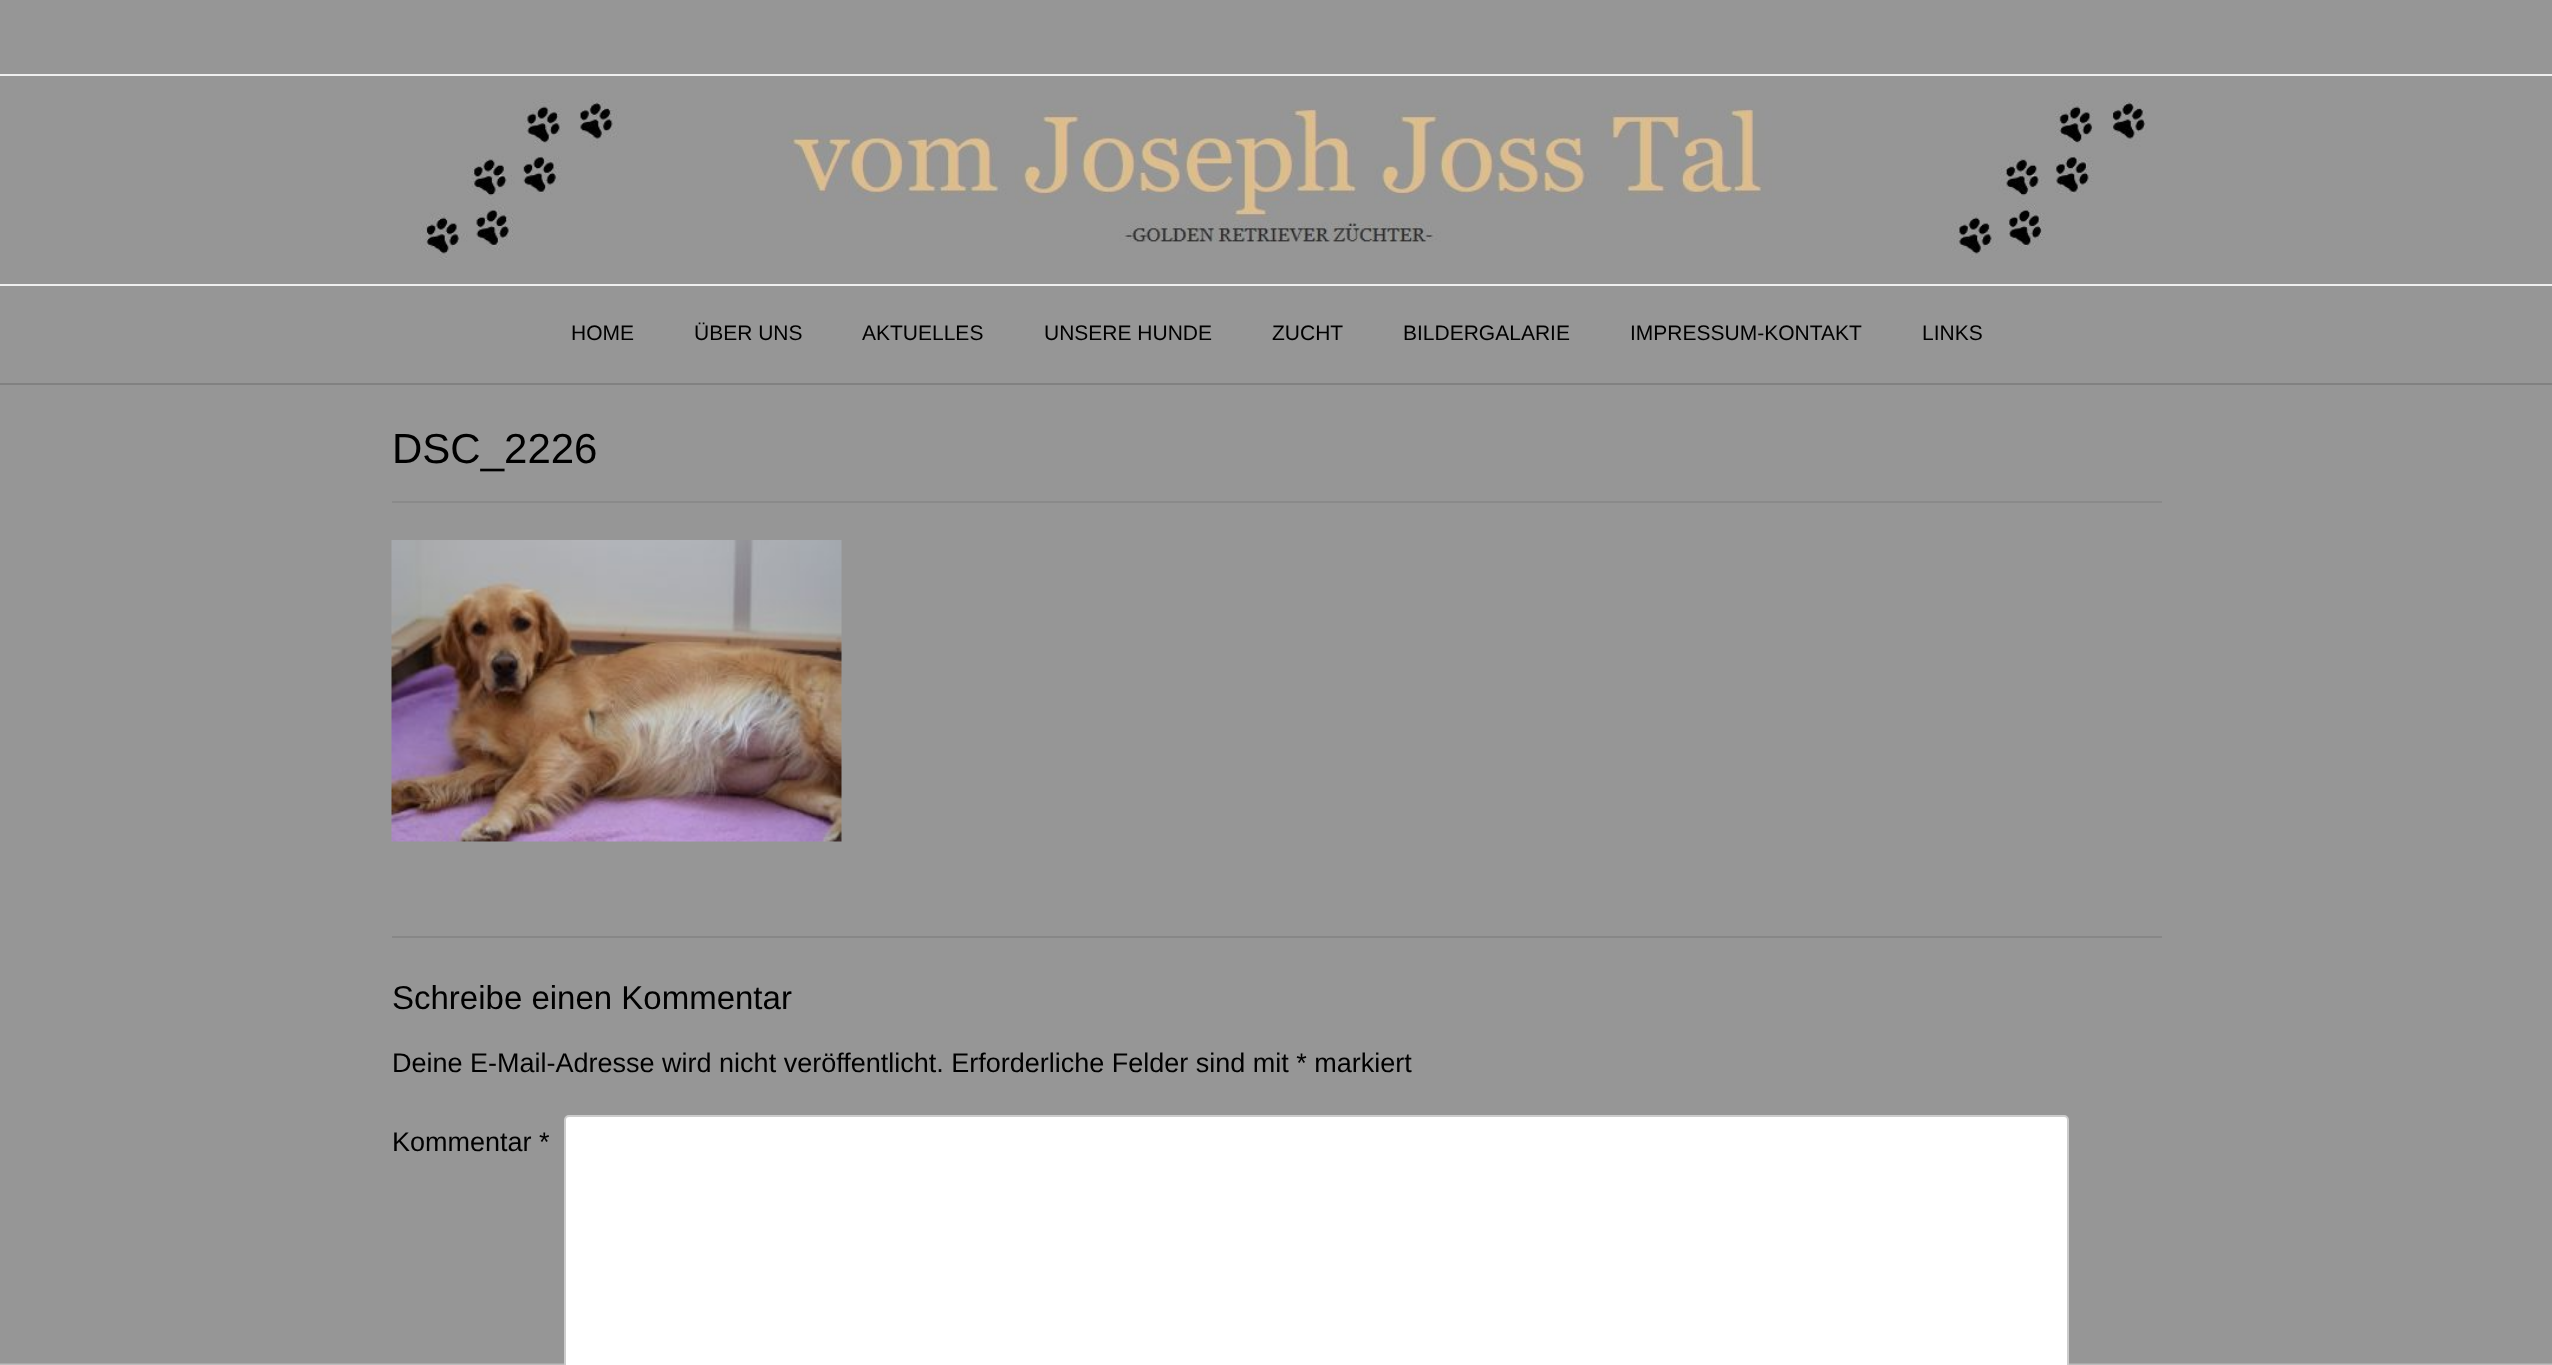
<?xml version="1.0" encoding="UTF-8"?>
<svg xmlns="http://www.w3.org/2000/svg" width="2552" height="1365">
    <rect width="100%" height="100%" fill="#FFFFFF"/>
    <image x="0" y="0" width="2552" height="1365" href="img_01.png"/>
    <rect x="0" y="383" width="2552" height="2" fill="#818181"/>
    <rect x="0" y="74" width="2552" height="2" fill="#EFEFEF"/>
    <image x="420" y="99" width="1727" height="161" href="img_02.png"/>
    <rect x="0" y="284" width="2552" height="2" fill="#EFEFEF"/>
    <text x="571" y="340" font-family="Liberation Sans" font-size="21" fill="#000000">HOME</text>
    <text x="694" y="340" font-family="Liberation Sans" font-size="21" fill="#000000">ÜBER UNS</text>
    <text x="862" y="340" font-family="Liberation Sans" font-size="21" fill="#000000">AKTUELLES</text>
    <text x="1044" y="340" font-family="Liberation Sans" font-size="21" fill="#000000">UNSERE HUNDE</text>
    <text x="1272" y="340" font-family="Liberation Sans" font-size="21" fill="#000000">ZUCHT</text>
    <text x="1403" y="340" font-family="Liberation Sans" font-size="21" fill="#000000">BILDERGALARIE</text>
    <text x="1630" y="340" font-family="Liberation Sans" font-size="21" fill="#000000">IMPRESSUM-KONTAKT</text>
    <text x="1922" y="340" font-family="Liberation Sans" font-size="21" fill="#000000">LINKS</text>
    <rect x="392" y="501" width="1770" height="2" fill="#8A8A8A"/>
    <text x="392" y="463" font-family="Liberation Sans" font-size="42" fill="#000000">DSC_2226</text>
    <rect x="392" y="936" width="1770" height="2" fill="#878787"/>
    <image x="391" y="540" width="451" height="302" href="img_03.png"/>
    <text x="392" y="1009" font-family="Liberation Sans" font-size="33" fill="#000000">Schreibe einen Kommentar</text>
    <text x="392" y="1072" font-family="Liberation Sans" font-size="27" fill="#000000">Deine E-Mail-Adresse wird nicht veröffentlicht. Erforderliche Felder sind mit * markiert</text>
    <text x="392" y="1151" font-family="Liberation Sans" font-size="27" fill="#000000">Kommentar *</text>
    <rect x="565" y="1116" width="1503" height="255" rx="4" fill="#FFFFFF" stroke="#CCCCCC" stroke-width="2"/>
</svg>
